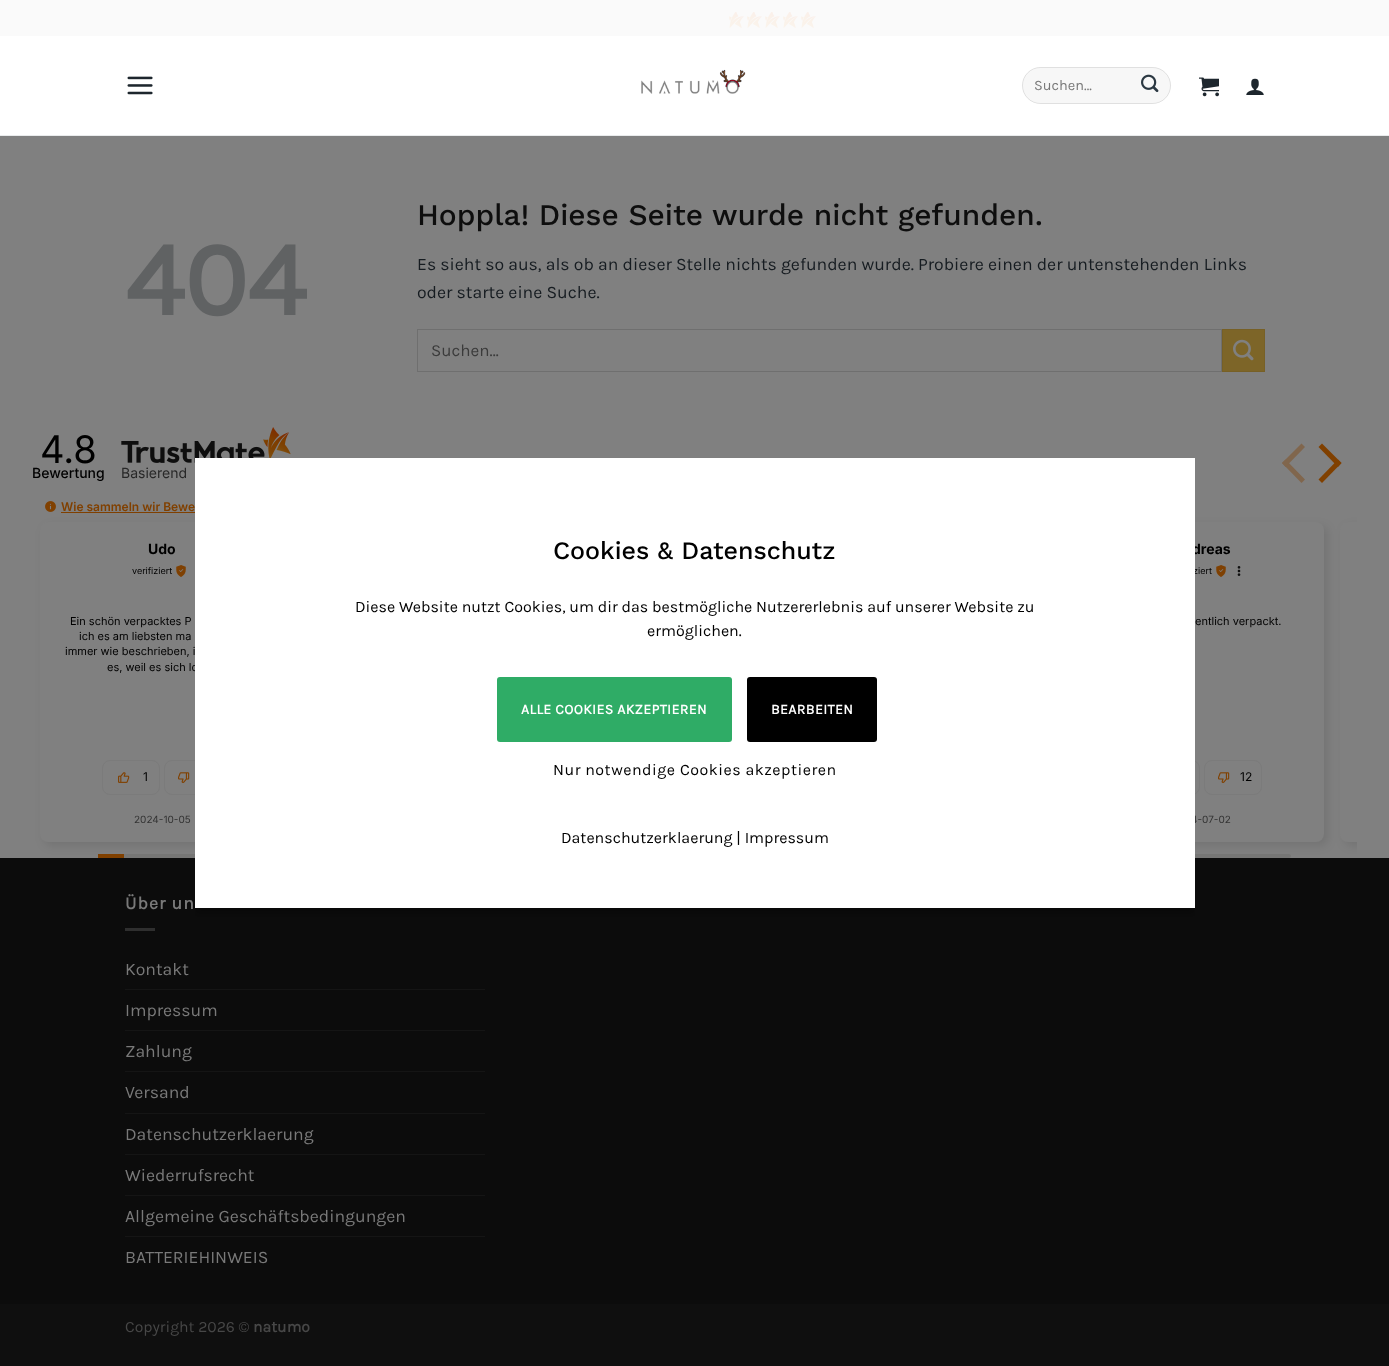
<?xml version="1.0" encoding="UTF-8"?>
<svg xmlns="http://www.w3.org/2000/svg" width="1389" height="1366">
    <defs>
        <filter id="blur1" x="-50%" y="-200%" width="200%" height="500%"><feGaussianBlur stdDeviation="5"/></filter>
        <clipPath id="clip1"><rect x="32" y="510" width="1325" height="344"/></clipPath>
        <clipPath id="clip2"><rect x="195" y="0" width="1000" height="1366"/></clipPath>
        <filter id="blur2" x="-50%" y="-200%" width="200%" height="500%"><feGaussianBlur stdDeviation="3"/></filter>
    </defs>
    <rect width="100%" height="100%" fill="#0F0F0F"/>
    <rect x="0" y="136" width="1389" height="722" fill="#808080"/>
    <rect x="0" y="0" width="1389" height="36" fill="#FAFAFA"/>
    <image x="729" y="12" width="15" height="16" href="img_01.png"/>
    <image x="747" y="12" width="15" height="16" href="img_01.png"/>
    <image x="765" y="12" width="15" height="16" href="img_01.png"/>
    <image x="783" y="12" width="15" height="16" href="img_01.png"/>
    <image x="801" y="12" width="15" height="16" href="img_01.png"/>
    <rect x="0" y="36" width="1389" height="99" fill="#FFFFFF"/>
    <rect x="0" y="135" width="1389" height="1" fill="#E9EBEC"/>
    <image x="127" y="76" width="26" height="19" href="img_02.png"/>
    <image x="641" y="69" width="105" height="25" href="img_03.png"/>
    <rect x="1022" y="67" width="149" height="37" rx="18.5" fill="#F7F7F7"/>
    <rect x="1022.5" y="67.5" width="148" height="36" rx="18" fill="none" stroke="#000000" stroke-opacity="0.09"/>
    <text x="1034" y="90" font-family="Karla" font-size="14.5" fill="#797979">Suchen…</text>
    <image x="1141" y="74" width="18" height="19" href="img_04.png"/>
    <image x="1199" y="77" width="20" height="20" href="img_05.png"/>
    <image x="1246" y="78" width="18" height="17" href="img_06.png"/>
    <text x="125" y="315" font-family="Karla" font-size="106" font-weight="700" fill="#606263">404</text>
    <text x="417" y="225" font-family="Work Sans" font-size="29.9" font-weight="500" fill="#0E0E0E">Hoppla! Diese Seite wurde nicht gefunden.</text>
    <text font-family="Karla" font-size="17.6" fill="#161C21">
        <tspan x="417" y="270">Es sieht so aus, als ob an dieser Stelle nichts gefunden wurde. Probiere einen der untenstehenden Links</tspan>
        <tspan x="417" y="298">oder starte eine Suche.</tspan>
    </text>
    <rect x="417.5" y="329.5" width="804" height="42" fill="none" stroke="#6F6F6F"/>
    <text x="431" y="356" font-family="Karla" font-size="17" fill="#3B3B3B">Suchen…</text>
    <rect x="1222.5" y="329.5" width="42" height="42" fill="#7D6528" stroke="#776026"/>
    <image x="1233" y="339" width="21" height="22" href="img_07.png"/>
    <text x="40" y="463" font-family="Inter" font-size="38" fill="#000000">4.8</text>
    <image x="121" y="427" width="170" height="36" href="img_08.png"/>
    <text x="32" y="478" font-family="Inter" font-size="14" font-weight="500" fill="#000000">Bewertung</text>
    <text x="121" y="478" font-family="Inter" font-size="14" fill="#282828">Basierend</text>
    <path d="M 1305 479.5 L 1301.5 483 L 1282 463 L 1285.5 459.5 Z" fill="#80664D"/>
    <path d="M 1305 447 L 1285.5 467 L 1282 463 L 1301.5 443.5 Z" fill="#80664D"/>
    <path d="M 1318.5 447 L 1322 443.5 L 1341.5 463 L 1338 467 Z" fill="#804000"/>
    <path d="M 1318.5 479.5 L 1338 459.5 L 1341.5 463 L 1322 483 Z" fill="#804000"/>
    <rect x="98" y="854" width="1193" height="4" rx="2" fill="#767675"/>
    <rect x="44" y="526" width="244" height="320" rx="8" fill="#000000" fill-opacity="0.1" filter="url(#blur1)"/>
    <image x="45" y="501" width="11" height="11" href="img_09.png"/>
    <text x="61" y="511" font-family="Inter" font-size="12" font-weight="600" fill="#804000">Wie sammeln wir Bewe</text>
    <rect x="61" y="512" width="134" height="1" fill="#804000"/>
    <rect x="40" y="522" width="244" height="320" rx="8" fill="#808080"/>
    <text x="148" y="554" font-family="Inter" font-size="14" font-weight="700" fill="#000000">Udo</text>
    <text x="132" y="574" font-family="Inter" font-size="9" fill="#000000">verifiziert</text>
    <image x="176" y="565" width="10" height="12" href="img_10.png"/>
    <text x="70" y="625" font-family="Inter" font-size="11" fill="#000000">Ein schön verpacktes P</text>
    <text x="79" y="640" font-family="Inter" font-size="11" fill="#000000">ich es am liebsten ma</text>
    <text x="65" y="655" font-family="Inter" font-size="11" fill="#000000">immer wie beschrieben, i</text>
    <text x="107" y="671" font-family="Inter" font-size="11" fill="#000000">es, weil es sich lo</text>
    <rect x="102.5" y="760.5" width="57" height="34" rx="7.5" fill="none" stroke="#7B7B7B"/>
    <image x="118" y="772" width="12" height="11" href="img_11.png"/>
    <text x="143" y="781" font-family="Inter" font-size="12" fill="#000000">1</text>
    <rect x="164.5" y="760.5" width="57" height="34" rx="7.5" fill="none" stroke="#7B7B7B"/>
    <image x="178" y="772" width="12" height="11" href="img_12.png"/>
    <text x="134" y="823" font-family="Inter" font-size="10" fill="#333333">2024-10-05</text>
    <rect x="1084" y="526" width="244" height="320" rx="8" fill="#000000" fill-opacity="0.1" filter="url(#blur1)"/>
    <rect x="1080" y="522" width="244" height="320" rx="8" fill="#808080"/>
    <text x="1192" y="554" font-family="Inter" font-size="14" font-weight="700" fill="#000000">dreas</text>
    <text x="1193" y="574" font-family="Inter" font-size="9" fill="#000000">ziert</text>
    <image x="1216" y="565" width="10" height="12" href="img_10.png"/>
    <image x="1237" y="566" width="4" height="10" href="img_13.png"/>
    <text x="1195" y="625" font-family="Inter" font-size="11" fill="#000000">entlich verpackt.</text>
    <rect x="1142.5" y="760.5" width="57" height="34" rx="7.5" fill="none" stroke="#7B7B7B"/>
    <rect x="1204.5" y="760.5" width="57" height="34" rx="7.5" fill="none" stroke="#7B7B7B"/>
    <image x="1218" y="772" width="12" height="11" href="img_12.png"/>
    <text x="1240" y="781" font-family="Inter" font-size="12" fill="#000000">12</text>
    <text x="1191" y="823" font-family="Inter" font-size="10" fill="#333333">4-07-02</text>
    <g clip-path="url(#clip1)">
        <rect x="1344" y="526" width="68" height="320" rx="8" fill="#000000" fill-opacity="0.1" filter="url(#blur1)"/>
    </g>
    <path d="M 1348 522 H 1357 V 842 H 1348 C 1343.5 842 1340 838.5 1340 834 V 530 C 1340 525.5 1343.5 522 1348 522 Z" fill="#808080"/>
    <rect x="98" y="854" width="26" height="4" fill="#804000"/>
    <rect x="0" y="858" width="1389" height="446" fill="#0C0C0C"/>
    <text x="125" y="909" font-family="Karla" font-size="17.6" font-weight="700" letter-spacing="1" fill="#797979">Über un</text>
    <rect x="125" y="928" width="30" height="3" fill="#2F2F2F"/>
    <text x="125" y="975" font-family="Karla" font-size="17.6" fill="#797979">Kontakt</text>
    <rect x="125" y="989" width="360" height="1" fill="#151515"/>
    <text x="125" y="1016" font-family="Karla" font-size="17.6" fill="#797979">Impressum</text>
    <rect x="125" y="1030" width="360" height="1" fill="#151515"/>
    <text x="125" y="1057" font-family="Karla" font-size="17.6" fill="#797979">Zahlung</text>
    <rect x="125" y="1071" width="360" height="1" fill="#151515"/>
    <text x="125" y="1098" font-family="Karla" font-size="17.6" fill="#797979">Versand</text>
    <rect x="125" y="1113" width="360" height="1" fill="#151515"/>
    <text x="125" y="1140" font-family="Karla" font-size="17.6" fill="#797979">Datenschutzerklaerung</text>
    <rect x="125" y="1154" width="360" height="1" fill="#151515"/>
    <text x="125" y="1181" font-family="Karla" font-size="17.6" fill="#797979">Wiederrufsrecht</text>
    <rect x="125" y="1195" width="360" height="1" fill="#151515"/>
    <text x="125" y="1222" font-family="Karla" font-size="17.6" fill="#797979">Allgemeine Geschäftsbedingungen</text>
    <rect x="125" y="1236" width="360" height="1" fill="#151515"/>
    <text x="125" y="1263" font-family="Karla" font-size="17.6" fill="#797979">BATTERIEHINWEIS</text>
    <text x="125" y="1332" font-family="Karla" font-size="15.75" fill="#474747">Copyright 2026 ©</text>
    <text x="253" y="1332" font-family="Karla" font-size="15.75" font-weight="700" fill="#474747">natumo</text>
    <g clip-path="url(#clip2)">
        <rect x="195" y="464" width="1000" height="450" fill="#000000" fill-opacity="0.25" filter="url(#blur2)"/>
    </g>
    <rect x="195" y="458" width="1000" height="450" fill="#FFFFFF"/>
    <text x="553" y="559" font-family="Work Sans" font-size="25" font-weight="500" fill="#000000">Cookies &amp; Datenschutz</text>
    <text x="355" y="612" font-family="Karla" font-size="16" fill="#000000">Diese Website nutzt Cookies, um dir das bestmögliche Nutzererlebnis auf unserer Website zu</text>
    <text x="647" y="636" font-family="Karla" font-size="16" fill="#000000">ermöglichen.</text>
    <rect x="497" y="677" width="235" height="65" rx="3" fill="#2FAC66"/>
    <text x="521" y="714" font-family="Karla" font-size="14" font-weight="700" letter-spacing="0.4" fill="#FFFFFF">ALLE COOKIES AKZEPTIEREN</text>
    <rect x="747" y="677" width="130" height="65" rx="3" fill="#000000"/>
    <text x="771" y="714" font-family="Karla" font-size="14" font-weight="700" letter-spacing="0.4" fill="#FFFFFF">BEARBEITEN</text>
    <text x="553" y="775" font-family="Karla" font-size="16" letter-spacing="0.5" fill="#000000">Nur notwendige Cookies akzeptieren</text>
    <text x="561" y="843" font-family="Karla" font-size="16" fill="#000000">Datenschutzerklaerung | Impressum</text>
</svg>
